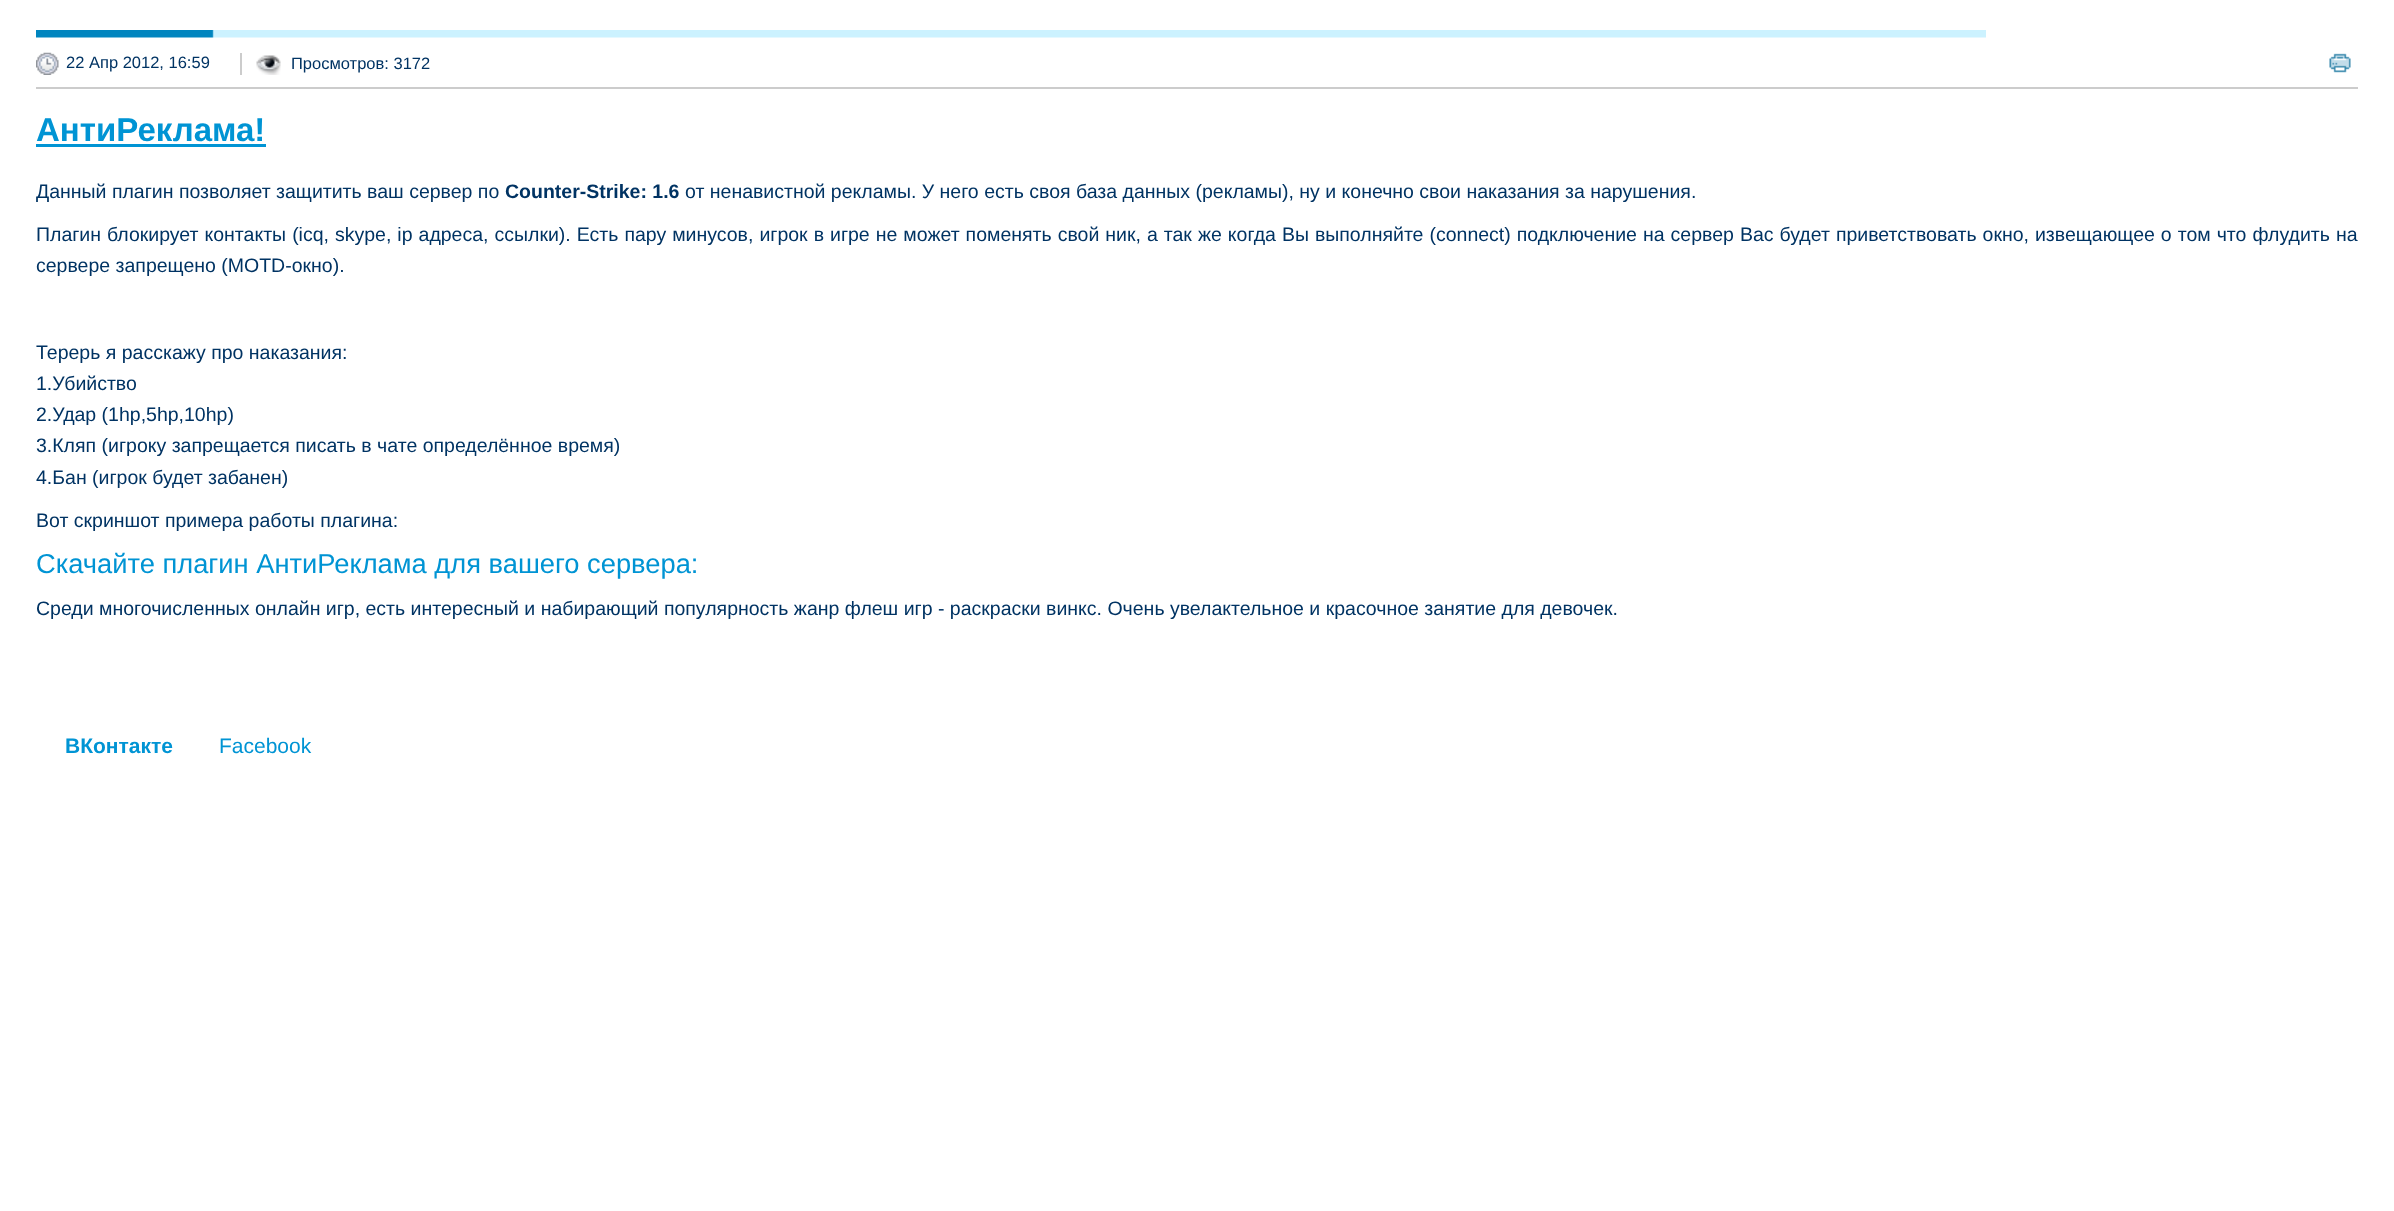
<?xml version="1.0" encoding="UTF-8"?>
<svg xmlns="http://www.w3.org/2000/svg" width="2394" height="1211">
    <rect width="100%" height="100%" fill="#FFFFFF"/>
    <image x="36" y="30" width="1950" height="8" href="img_01.png"/>
    <rect x="36" y="87" width="2322" height="2" fill="#CCCCCC"/>
    <image x="36" y="52" width="23" height="23" href="img_02.png"/>
    <text x="66" y="68" font-family="Liberation Sans" font-size="16.5" fill="#003363">22 Апр 2012, 16:59</text>
    <image x="256" y="55" width="25" height="20" href="img_03.png"/>
    <rect x="240" y="53" width="2" height="22" fill="#CCCCCC"/>
    <text x="291" y="69" font-family="Liberation Sans" font-size="16.5" fill="#003363">Просмотров: 3172</text>
    <image x="2329" y="53" width="22" height="20" href="img_04.png"/>
    <text x="36" y="141" font-family="Liberation Sans" font-size="33" font-weight="700" fill="#0094D4">АнтиРеклама!</text>
    <rect x="36" y="144" width="230" height="3" fill="#0094D4"/>
    <text x="36" y="198" font-family="Liberation Sans" font-size="19.51" fill="#003363">Данный плагин позволяет защитить ваш сервер по</text>
    <text x="505" y="198" font-family="Liberation Sans" font-size="19.51" font-weight="700" fill="#003363">Counter-Strike: 1.6</text>
    <text x="685" y="198" font-family="Liberation Sans" font-size="19.51" fill="#003363">от ненавистной рекламы. У него есть своя база данных (рекламы), ну и конечно свои наказания за нарушения.</text>
    <text font-family="Liberation Sans" font-size="19.51" fill="#003363">
        <tspan x="36" y="241" word-spacing="0.6">Плагин блокирует контакты (icq, skype, ip адреса, ссылки). Есть пару минусов, игрок в игре не может поменять свой ник, а так же когда Вы выполняйте (connect) подключение на сервер Вас будет приветствовать окно, извещающее о том что флудить на</tspan>
        <tspan x="36" y="272">сервере запрещено (MOTD-окно).</tspan>
    </text>
    <text font-family="Liberation Sans" font-size="19.51" fill="#003363">
        <tspan x="36" y="359">Терерь я расскажу про наказания:</tspan>
        <tspan x="36" y="390">1.Убийство</tspan>
        <tspan x="36" y="421">2.Удар (1hp,5hp,10hp)</tspan>
        <tspan x="36" y="452">3.Кляп (игроку запрещается писать в чате определённое время)</tspan>
        <tspan x="36" y="484">4.Бан (игрок будет забанен)</tspan>
    </text>
    <text x="36" y="527" font-family="Liberation Sans" font-size="19.51" fill="#003363">Вот скриншот примера работы плагина:</text>
    <text x="36" y="573" font-family="Liberation Sans" font-size="27.3" fill="#0094D4">Скачайте плагин АнтиРеклама для вашего сервера:</text>
    <text x="36" y="615" font-family="Liberation Sans" font-size="19.51" fill="#003363">Среди многочисленных онлайн игр, есть интересный и набирающий популярность жанр флеш игр - раскраски винкс. Очень увелактельное и красочное занятие для девочек.</text>
    <text x="65" y="753" font-family="Liberation Sans" font-size="21" font-weight="700" fill="#0094D4">ВКонтакте</text>
    <text x="219" y="753" font-family="Liberation Sans" font-size="21" fill="#0094D4">Facebook</text>
</svg>
